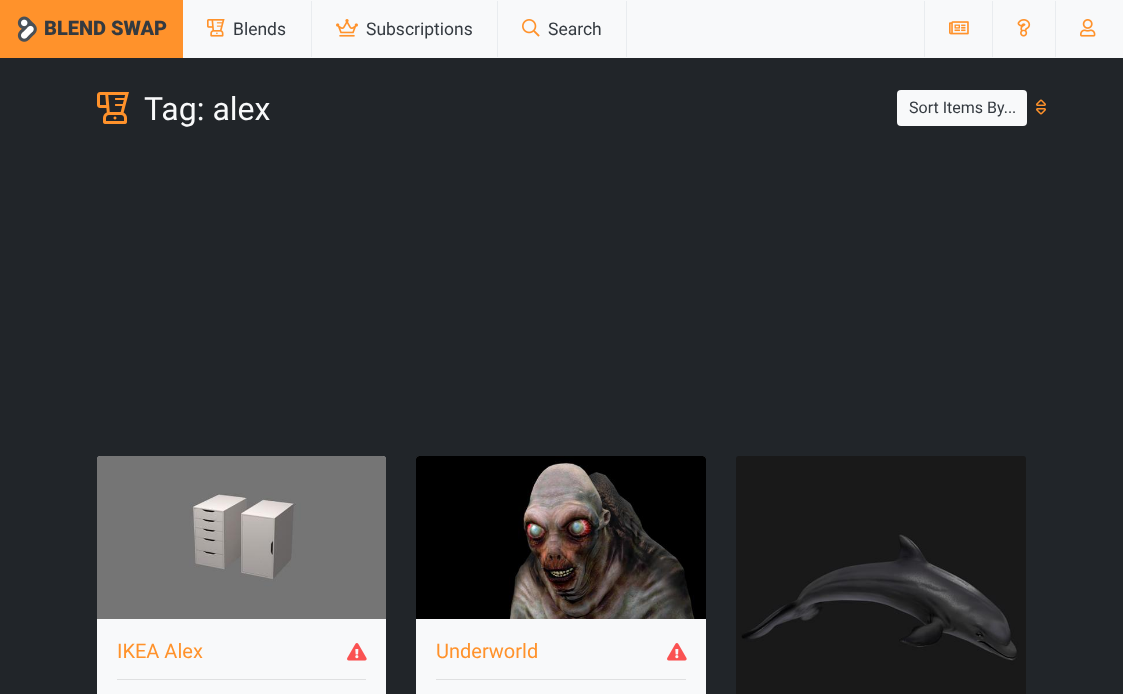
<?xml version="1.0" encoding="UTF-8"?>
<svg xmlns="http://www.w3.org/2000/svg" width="1123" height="694">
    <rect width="100%" height="100%" fill="#212529"/>
    <rect x="183" y="0" width="940" height="58" fill="#F8F9FA"/>
    <rect x="0" y="0" width="183" height="58" fill="#FF922B"/>
    <image x="17" y="16" width="20" height="26" href="img_01.png"/>
    <text x="44" y="35" font-family="Roboto" font-size="20" font-weight="900" fill="#343A40">BLEND SWAP</text>
    <rect x="311" y="1" width="1" height="56" fill="#E9ECEF"/>
    <image x="207" y="19" width="18" height="18" href="img_02.png"/>
    <text x="233" y="35" font-family="Roboto" font-size="17.5" fill="#343A40">Blends</text>
    <rect x="497" y="1" width="1" height="56" fill="#E9ECEF"/>
    <image x="336" y="19" width="22" height="18" href="img_03.png"/>
    <text x="366" y="35" font-family="Roboto" font-size="17.5" fill="#343A40">Subscriptions</text>
    <rect x="626" y="1" width="1" height="56" fill="#E9ECEF"/>
    <image x="522" y="19" width="18" height="18" href="img_04.png"/>
    <text x="548" y="35" font-family="Roboto" font-size="17.5" fill="#343A40">Search</text>
    <rect x="924" y="1" width="1" height="56" fill="#E9ECEF"/>
    <image x="949" y="21" width="20" height="14" href="img_05.png"/>
    <rect x="992" y="1" width="1" height="56" fill="#E9ECEF"/>
    <image x="1017" y="19" width="14" height="18" href="img_06.png"/>
    <rect x="1055" y="1" width="1" height="56" fill="#E9ECEF"/>
    <image x="1080" y="19" width="16" height="18" href="img_07.png"/>
    <image x="97" y="92" width="32" height="32" href="img_08.png"/>
    <text x="144" y="120" font-family="Roboto" font-size="32" fill="#F8F9FA">Tag: alex</text>
    <rect x="897" y="90" width="130" height="36" rx="4" fill="#F8F9FA"/>
    <text x="909" y="113" font-family="Roboto" font-size="16" fill="#343A40">Sort Items By...</text>
    <image x="1036" y="99" width="10" height="16" href="img_09.png"/>
    <rect x="97" y="456" width="289" height="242" rx="4" fill="#F8F9FA"/>
    <image x="97" y="456" width="289" height="163" href="img_10.png"/>
    <text x="117" y="658" font-family="Roboto" font-size="20" fill="#FF922B">IKEA Alex</text>
    <image x="347" y="643" width="20" height="18" href="img_11.png"/>
    <rect x="117" y="679" width="249" height="1" fill="#DFE0E1"/>
    <rect x="416" y="456" width="290" height="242" rx="4" fill="#F8F9FA"/>
    <image x="416" y="456" width="290" height="163" href="img_12.png"/>
    <text x="436" y="658" font-family="Roboto" font-size="20" fill="#FF922B">Underworld</text>
    <image x="667" y="643" width="20" height="18" href="img_11.png"/>
    <rect x="436" y="679" width="250" height="1" fill="#DFE0E1"/>
    <image x="736" y="456" width="290" height="238" href="img_13.png"/>
</svg>
